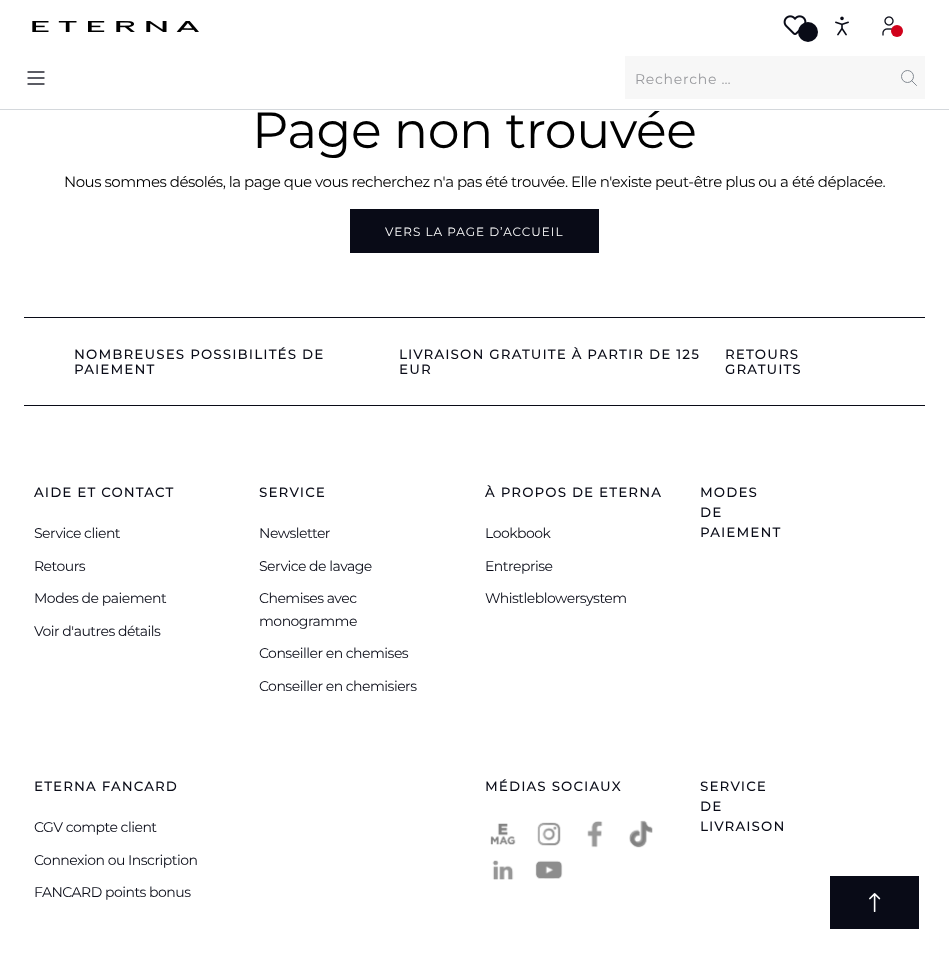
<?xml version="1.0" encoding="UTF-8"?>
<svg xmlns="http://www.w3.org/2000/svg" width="949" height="959">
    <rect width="100%" height="100%" fill="#FFFFFF"/>
    <rect x="0" y="109" width="949" height="1" fill="#D4D8DC"/>
    <image x="32" y="21" width="167" height="11" href="img_01.png"/>
    <image x="783" y="15" width="24" height="20" href="img_02.png"/>
    <circle cx="808" cy="32" r="10" fill="#090B17"/>
    <image x="835" y="16" width="14" height="20" href="img_03.png"/>
    <image x="882" y="16" width="12" height="20" href="img_04.png"/>
    <circle cx="897" cy="31" r="6" fill="#D0021B"/>
    <image x="27" y="71" width="18" height="14" href="img_05.png"/>
    <rect x="625" y="56" width="300" height="43" fill="#F7F7F7"/>
    <text x="635" y="84" font-family="Montserrat" font-size="14" letter-spacing="0.75" fill="#98999D">Recherche …</text>
    <circle cx="907.5" cy="76.5" r="6" fill="none" stroke="#838A92"/>
    <path d="M 916.5 85.5 L 911.5 80.5" fill="none" stroke="#838A92" stroke-linecap="round" stroke-linejoin="round"/>
    <text x="252" y="148" font-family="Montserrat" font-size="50.75" letter-spacing="-0.5" fill="#000000">Page non trouvée</text>
    <text x="64" y="187" font-family="Montserrat" font-size="15" letter-spacing="-0.5" fill="#000000">Nous sommes désolés, la page que vous recherchez n'a pas été trouvée. Elle n'existe peut-être plus ou a été déplacée.</text>
    <rect x="350" y="209" width="249" height="44" fill="#090B17"/>
    <text x="385" y="236" font-family="Montserrat" font-size="12" letter-spacing="1" fill="#FFFFFF">VERS LA PAGE D’ACCUEIL</text>
    <rect x="24" y="317" width="901" height="1" fill="#090B17"/>
    <rect x="24" y="405" width="901" height="1" fill="#090B17"/>
    <text font-family="Montserrat" font-size="13" font-weight="700" letter-spacing="1.45" fill="#090B17">
        <tspan x="74" y="359">NOMBREUSES POSSIBILITÉS DE</tspan>
        <tspan x="74" y="374">PAIEMENT</tspan>
    </text>
    <text font-family="Montserrat" font-size="13" font-weight="700" letter-spacing="1.45" fill="#090B17">
        <tspan x="399" y="359">LIVRAISON GRATUITE À PARTIR DE 125</tspan>
        <tspan x="399" y="374">EUR</tspan>
    </text>
    <text font-family="Montserrat" font-size="13" font-weight="700" letter-spacing="1.45" fill="#090B17">
        <tspan x="725" y="359">RETOURS</tspan>
        <tspan x="725" y="374">GRATUITS</tspan>
    </text>
    <text x="34" y="497" font-family="Montserrat" font-size="13" font-weight="700" letter-spacing="1.45" fill="#090B17">AIDE ET CONTACT</text>
    <text x="34" y="538" font-family="Montserrat" font-size="14" letter-spacing="-0.5" fill="#090B17">Service client</text>
    <text x="34" y="571" font-family="Montserrat" font-size="14" letter-spacing="-0.5" fill="#090B17">Retours</text>
    <text x="34" y="603" font-family="Montserrat" font-size="14" letter-spacing="-0.5" fill="#090B17">Modes de paiement</text>
    <text x="34" y="636" font-family="Montserrat" font-size="14" letter-spacing="-0.5" fill="#090B17">Voir d'autres détails</text>
    <text x="34" y="791" font-family="Montserrat" font-size="13" font-weight="700" letter-spacing="1.45" fill="#090B17">ETERNA FANCARD</text>
    <text x="34" y="832" font-family="Montserrat" font-size="14" letter-spacing="-0.5" fill="#090B17">CGV compte client</text>
    <text x="34" y="865" font-family="Montserrat" font-size="14" letter-spacing="-0.5" fill="#090B17">Connexion ou Inscription</text>
    <text x="34" y="897" font-family="Montserrat" font-size="14" letter-spacing="-0.5" fill="#090B17">FANCARD points bonus</text>
    <text x="259" y="497" font-family="Montserrat" font-size="13" font-weight="700" letter-spacing="1.45" fill="#090B17">SERVICE</text>
    <text x="259" y="538" font-family="Montserrat" font-size="14" letter-spacing="-0.5" fill="#090B17">Newsletter</text>
    <text x="259" y="571" font-family="Montserrat" font-size="14" letter-spacing="-0.5" fill="#090B17">Service de lavage</text>
    <text font-family="Montserrat" font-size="14" letter-spacing="-0.5" fill="#090B17">
        <tspan x="259" y="603">Chemises avec</tspan>
        <tspan x="259" y="626">monogramme</tspan>
    </text>
    <text x="259" y="658" font-family="Montserrat" font-size="14" letter-spacing="-0.5" fill="#090B17">Conseiller en chemises</text>
    <text x="259" y="691" font-family="Montserrat" font-size="14" letter-spacing="-0.5" fill="#090B17">Conseiller en chemisiers</text>
    <text x="485" y="497" font-family="Montserrat" font-size="13" font-weight="700" letter-spacing="1.45" fill="#090B17">À PROPOS DE ETERNA</text>
    <text x="485" y="538" font-family="Montserrat" font-size="14" letter-spacing="-0.5" fill="#090B17">Lookbook</text>
    <text x="485" y="571" font-family="Montserrat" font-size="14" letter-spacing="-0.5" fill="#090B17">Entreprise</text>
    <text x="485" y="603" font-family="Montserrat" font-size="14" letter-spacing="-0.5" fill="#090B17">Whistleblowersystem</text>
    <text x="485" y="791" font-family="Montserrat" font-size="13" font-weight="700" letter-spacing="1.45" fill="#090B17">MÉDIAS SOCIAUX</text>
    <image x="490" y="823" width="26" height="22" href="img_06.png"/>
    <image x="537" y="822" width="24" height="24" href="img_07.png"/>
    <image x="587" y="821" width="16" height="27" href="img_08.png"/>
    <image x="629" y="820" width="24" height="28" href="img_09.png"/>
    <image x="492" y="860" width="22" height="20" href="img_10.png"/>
    <image x="535" y="860" width="28" height="19" href="img_11.png"/>
    <text font-family="Montserrat" font-size="13" font-weight="700" letter-spacing="1.45" fill="#090B17">
        <tspan x="700" y="497">MODES</tspan>
        <tspan x="700" y="517">DE</tspan>
        <tspan x="700" y="537">PAIEMENT</tspan>
    </text>
    <text font-family="Montserrat" font-size="13" font-weight="700" letter-spacing="1.45" fill="#090B17">
        <tspan x="700" y="791">SERVICE</tspan>
        <tspan x="700" y="811">DE</tspan>
        <tspan x="700" y="831">LIVRAISON</tspan>
    </text>
    <rect x="830" y="876" width="89" height="53" fill="#090B17"/>
    <image x="869" y="893" width="12" height="19" href="img_12.png"/>
</svg>
